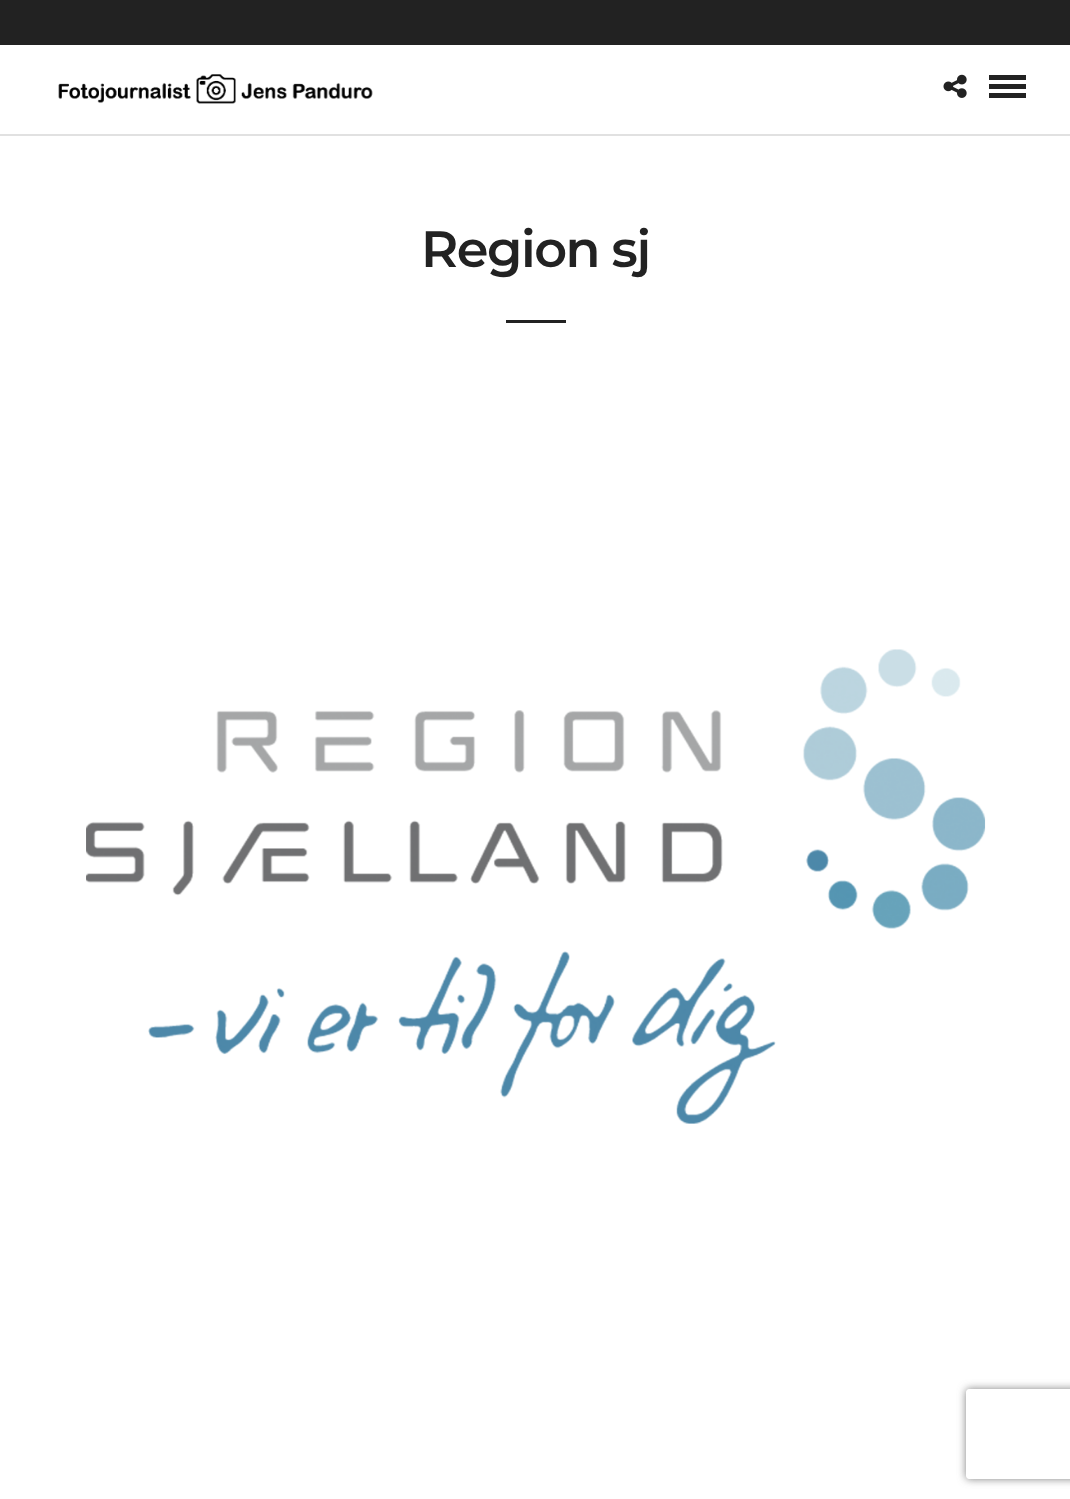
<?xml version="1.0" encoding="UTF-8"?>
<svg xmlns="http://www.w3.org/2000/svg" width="1070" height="1499">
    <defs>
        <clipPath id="clip1"><path d="M 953 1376 H 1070 V 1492 H 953 Z M 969 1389 H 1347 C 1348.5 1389 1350 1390.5 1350 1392 V 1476 C 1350 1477.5 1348.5 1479 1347 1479 H 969 C 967.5 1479 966 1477.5 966 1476 V 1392 C 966 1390.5 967.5 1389 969 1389 Z" clip-rule="evenodd"/></clipPath>
        <filter id="blur1" x="-50%" y="-200%" width="200%" height="500%"><feGaussianBlur stdDeviation="4"/></filter>
    </defs>
    <rect width="100%" height="100%" fill="#FFFFFF"/>
    <rect x="0" y="0" width="1070" height="45" fill="#222222"/>
    <rect x="0" y="134" width="1070" height="2" fill="#E1E1E1"/>
    <image x="58" y="74" width="315" height="30" href="img_01.png"/>
    <image x="943" y="74" width="24" height="24" href="img_02.png"/>
    <rect x="989" y="75" width="37" height="5" fill="#222222"/>
    <rect x="989" y="84" width="37" height="5" fill="#222222"/>
    <rect x="989" y="93" width="37" height="5" fill="#222222"/>
    <text x="421" y="267" font-family="Montserrat" font-size="51" font-weight="600" letter-spacing="-1.5" fill="#222222">Region sj</text>
    <rect x="506" y="320" width="60" height="3" fill="#222222"/>
    <image x="86" y="649" width="900" height="475" href="img_03.png"/>
    <g clip-path="url(#clip1)">
        <rect x="966" y="1389" width="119" height="90" rx="3" fill="#808080" filter="url(#blur1)"/>
    </g>
</svg>
